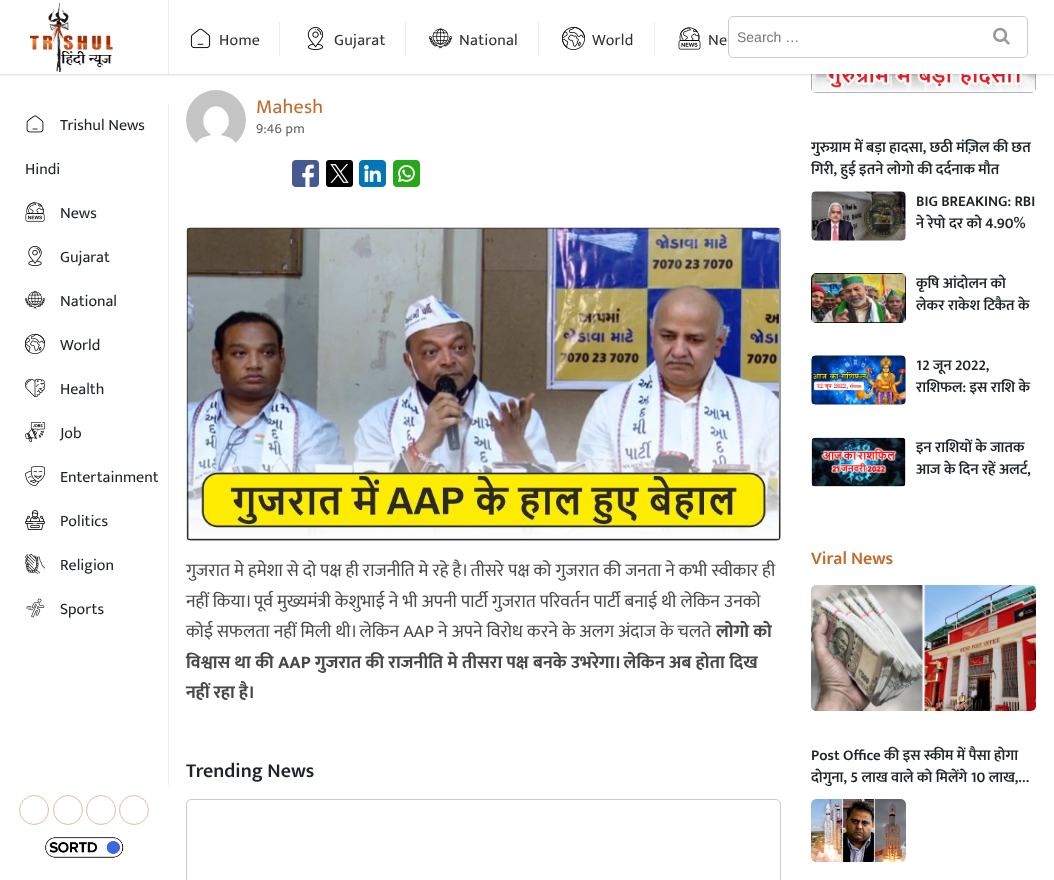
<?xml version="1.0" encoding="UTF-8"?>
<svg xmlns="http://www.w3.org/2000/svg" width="1054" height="880">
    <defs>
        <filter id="blur1" x="-50%" y="-200%" width="200%" height="500%"><feGaussianBlur stdDeviation="1"/></filter>
        <clipPath id="clip1"><rect x="811" y="137" width="225" height="44"/></clipPath>
        <clipPath id="clip2"><rect x="916" y="191" width="120" height="44"/></clipPath>
        <clipPath id="clip3"><rect x="916" y="273" width="120" height="44"/></clipPath>
        <clipPath id="clip4"><rect x="811" y="745" width="225" height="44"/></clipPath>
    </defs>
    <rect width="100%" height="100%" fill="#FFFFFF"/>
    <image x="811" y="74" width="225" height="19" href="img_26.png"/>
    <rect x="0" y="1" width="1054" height="74" fill="#000000" fill-opacity="0.15" filter="url(#blur1)"/>
    <rect x="0" y="0" width="1054" height="74" fill="#FFFFFF"/>
    <rect x="168" y="0" width="1" height="74" fill="#EEEEEE"/>
    <image x="30" y="2" width="83" height="70" href="img_01.png"/>
    <rect x="279" y="22" width="1" height="34" fill="#EEEEEE"/>
    <image x="190" y="28" width="21" height="21" href="img_02.png"/>
    <text x="219" y="45" font-family="Mukta" font-size="16" letter-spacing="0.25" fill="#333333">Home</text>
    <rect x="405" y="22" width="1" height="34" fill="#EEEEEE"/>
    <image x="307" y="27" width="17" height="23" href="img_03.png"/>
    <text x="334" y="45" font-family="Mukta" font-size="16" letter-spacing="0.25" fill="#333333">Gujarat</text>
    <rect x="538" y="22" width="1" height="34" fill="#EEEEEE"/>
    <image x="429" y="28" width="23" height="21" href="img_04.png"/>
    <text x="459" y="45" font-family="Mukta" font-size="16" letter-spacing="0.25" fill="#333333">National</text>
    <rect x="654" y="22" width="1" height="34" fill="#EEEEEE"/>
    <image x="562" y="27" width="23" height="23" href="img_05.png"/>
    <text x="592" y="45" font-family="Mukta" font-size="16" letter-spacing="0.25" fill="#333333">World</text>
    <image x="678" y="27" width="23" height="23" href="img_06.png"/>
    <text x="708" y="45" font-family="Mukta" font-size="16" letter-spacing="0.25" fill="#333333">Ne</text>
    <rect x="728.5" y="16.5" width="299" height="41" rx="4.5" fill="none" stroke="#CCCCCC"/>
    <text x="737" y="42" font-family="Liberation Sans" font-size="14" fill="#757575">Search …</text>
    <image x="993" y="27" width="17" height="18" href="img_07.png"/>
    <rect x="168" y="104" width="1" height="681" fill="#EEEEEE"/>
    <image x="26" y="115" width="18" height="18" href="img_08.png"/>
    <text x="60" y="130" font-family="Mukta" font-size="16" fill="#1D2327">Trishul News</text>
    <text x="25" y="174" font-family="Mukta" font-size="16" fill="#1D2327">Hindi</text>
    <image x="25" y="202" width="20" height="20" href="img_09.png"/>
    <text x="60" y="218" font-family="Mukta" font-size="16" fill="#1D2327">News</text>
    <image x="28" y="246" width="14" height="20" href="img_10.png"/>
    <text x="60" y="262" font-family="Mukta" font-size="16" fill="#1D2327">Gujarat</text>
    <image x="25" y="291" width="20" height="18" href="img_11.png"/>
    <text x="60" y="306" font-family="Mukta" font-size="16" fill="#1D2327">National</text>
    <image x="25" y="334" width="20" height="20" href="img_12.png"/>
    <text x="60" y="350" font-family="Mukta" font-size="16" fill="#1D2327">World</text>
    <image x="25" y="379" width="20" height="18" href="img_13.png"/>
    <text x="60" y="394" font-family="Mukta" font-size="16" fill="#1D2327">Health</text>
    <image x="25" y="422" width="20" height="20" href="img_14.png"/>
    <text x="60" y="438" font-family="Mukta" font-size="16" fill="#1D2327">Job</text>
    <image x="25" y="466" width="20" height="20" href="img_15.png"/>
    <text x="60" y="482" font-family="Mukta" font-size="16" fill="#1D2327">Entertainment</text>
    <image x="25" y="510" width="20" height="20" href="img_16.png"/>
    <text x="60" y="526" font-family="Mukta" font-size="16" fill="#1D2327">Politics</text>
    <image x="25" y="554" width="20" height="20" href="img_17.png"/>
    <text x="60" y="570" font-family="Mukta" font-size="16" fill="#1D2327">Religion</text>
    <image x="25" y="598" width="20" height="20" href="img_18.png"/>
    <text x="60" y="614" font-family="Mukta" font-size="16" fill="#1D2327">Sports</text>
    <circle cx="34" cy="810" r="14.5" fill="none" stroke="#E2BDA1"/>
    <circle cx="68" cy="810" r="14.5" fill="none" stroke="#E2BDA1"/>
    <circle cx="101" cy="810" r="14.5" fill="none" stroke="#E2BDA1"/>
    <circle cx="134" cy="810" r="14.5" fill="none" stroke="#E2BDA1"/>
    <image x="45" y="837" width="79" height="21" href="img_19.png"/>
    <image x="186" y="90" width="60" height="53" href="img_20.png"/>
    <text x="256" y="113" font-family="Mukta" font-size="20" letter-spacing="0.25" fill="#BE6D2D">Mahesh</text>
    <text x="256" y="133" font-family="Mukta" font-size="14" letter-spacing="0.25" fill="#666666">9:46 pm</text>
    <image x="292" y="160" width="27" height="27" href="img_21.png"/>
    <image x="326" y="160" width="27" height="27" href="img_22.png"/>
    <image x="359" y="160" width="27" height="27" href="img_23.png"/>
    <image x="393" y="160" width="27" height="27" href="img_24.png"/>
    <image x="186" y="227" width="595" height="314" href="img_25.png"/>
    <text font-family="Mukta" font-size="18" fill="#484848">
        <tspan x="186" y="576">गुजरात मे हमेशा से दो पक्ष ही राजनीति मे रहे है। तीसरे पक्ष को गुजरात की जनता ने कभी स्वीकार ही</tspan>
        <tspan x="186" y="607" word-spacing="0.1">नहीं किया। पूर्व मुख्यमंत्री केशुभाई ने भी अपनी पार्टी गुजरात परिवर्तन पार्टी बनाई थी लेकिन उनको</tspan>
        <tspan x="186" y="637" word-spacing="0.1">कोई सफलता नहीं मिली थी। लेकिन AAP ने अपने विरोध करने के अलग अंदाज के चलते</tspan>
    </text>
    <text x="716" y="637" font-family="Mukta" font-size="18" font-weight="700" fill="#484848">लोगो को</text>
    <text font-family="Mukta" font-size="18" font-weight="700" fill="#484848">
        <tspan x="186" y="668" word-spacing="0.2">विश्वास था की AAP गुजरात की राजनीति मे तीसरा पक्ष बनके उभरेगा। लेकिन अब होता दिख</tspan>
        <tspan x="186" y="698">नहीं रहा है।</tspan>
    </text>
    <text x="186" y="777" font-family="Mukta" font-size="20" font-weight="600" fill="#1D2327">Trending News</text>
    <rect x="186.5" y="799.5" width="594" height="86" rx="4.5" fill="none" stroke="#CCCCCC"/>
    <g clip-path="url(#clip1)">
        <text x="811" y="152" font-family="Mukta" font-size="15" font-weight="600" fill="#1D2327">गुरुग्राम में बड़ा हादसा, छठी मंज़िल की छत</text>
    </g>
    <text x="811" y="174" font-family="Mukta" font-size="15" font-weight="600" fill="#1D2327">गिरी, हुई इतने लोगो की दर्दनाक मौत</text>
    <image x="811" y="191" width="95" height="50" href="img_27.png"/>
    <text x="916" y="206" font-family="Mukta" font-size="15" font-weight="600" fill="#1D2327">BIG BREAKING: RBI</text>
    <g clip-path="url(#clip2)">
        <text x="916" y="228" font-family="Mukta" font-size="15" font-weight="600" fill="#1D2327">ने रेपो दर को 4.90%</text>
    </g>
    <image x="811" y="273" width="95" height="50" href="img_28.png"/>
    <g clip-path="url(#clip3)">
        <text font-family="Mukta" font-size="15" font-weight="600" fill="#1D2327">
            <tspan x="916" y="288">कृषि आंदोलन को</tspan>
            <tspan x="916" y="310">लेकर राकेश टिकैत के</tspan>
        </text>
    </g>
    <image x="811" y="355" width="95" height="50" href="img_29.png"/>
    <text font-family="Mukta" font-size="15" font-weight="600" fill="#1D2327">
        <tspan x="916" y="370">12 जून 2022,</tspan>
        <tspan x="916" y="392">राशिफल: इस राशि के</tspan>
    </text>
    <image x="811" y="437" width="95" height="50" href="img_30.png"/>
    <text font-family="Mukta" font-size="15" font-weight="600" fill="#1D2327">
        <tspan x="916" y="452">इन राशियों के जातक</tspan>
        <tspan x="916" y="474">आज के दिन रहें अलर्ट,</tspan>
    </text>
    <text x="811" y="564" font-family="Mukta" font-size="18" font-weight="600" fill="#BE6D2D">Viral News</text>
    <image x="811" y="585" width="225" height="126" href="img_31.png"/>
    <text x="811" y="760" font-family="Mukta" font-size="15" font-weight="600" fill="#1D2327">Post Office की इस स्कीम में पैसा होगा</text>
    <g clip-path="url(#clip4)">
        <text x="811" y="782" font-family="Mukta" font-size="15" font-weight="600" fill="#1D2327">दोगुना, 5 लाख वाले को मिलेंगे 10 लाख,…</text>
    </g>
    <image x="811" y="799" width="95" height="63" href="img_32.png"/>
</svg>
